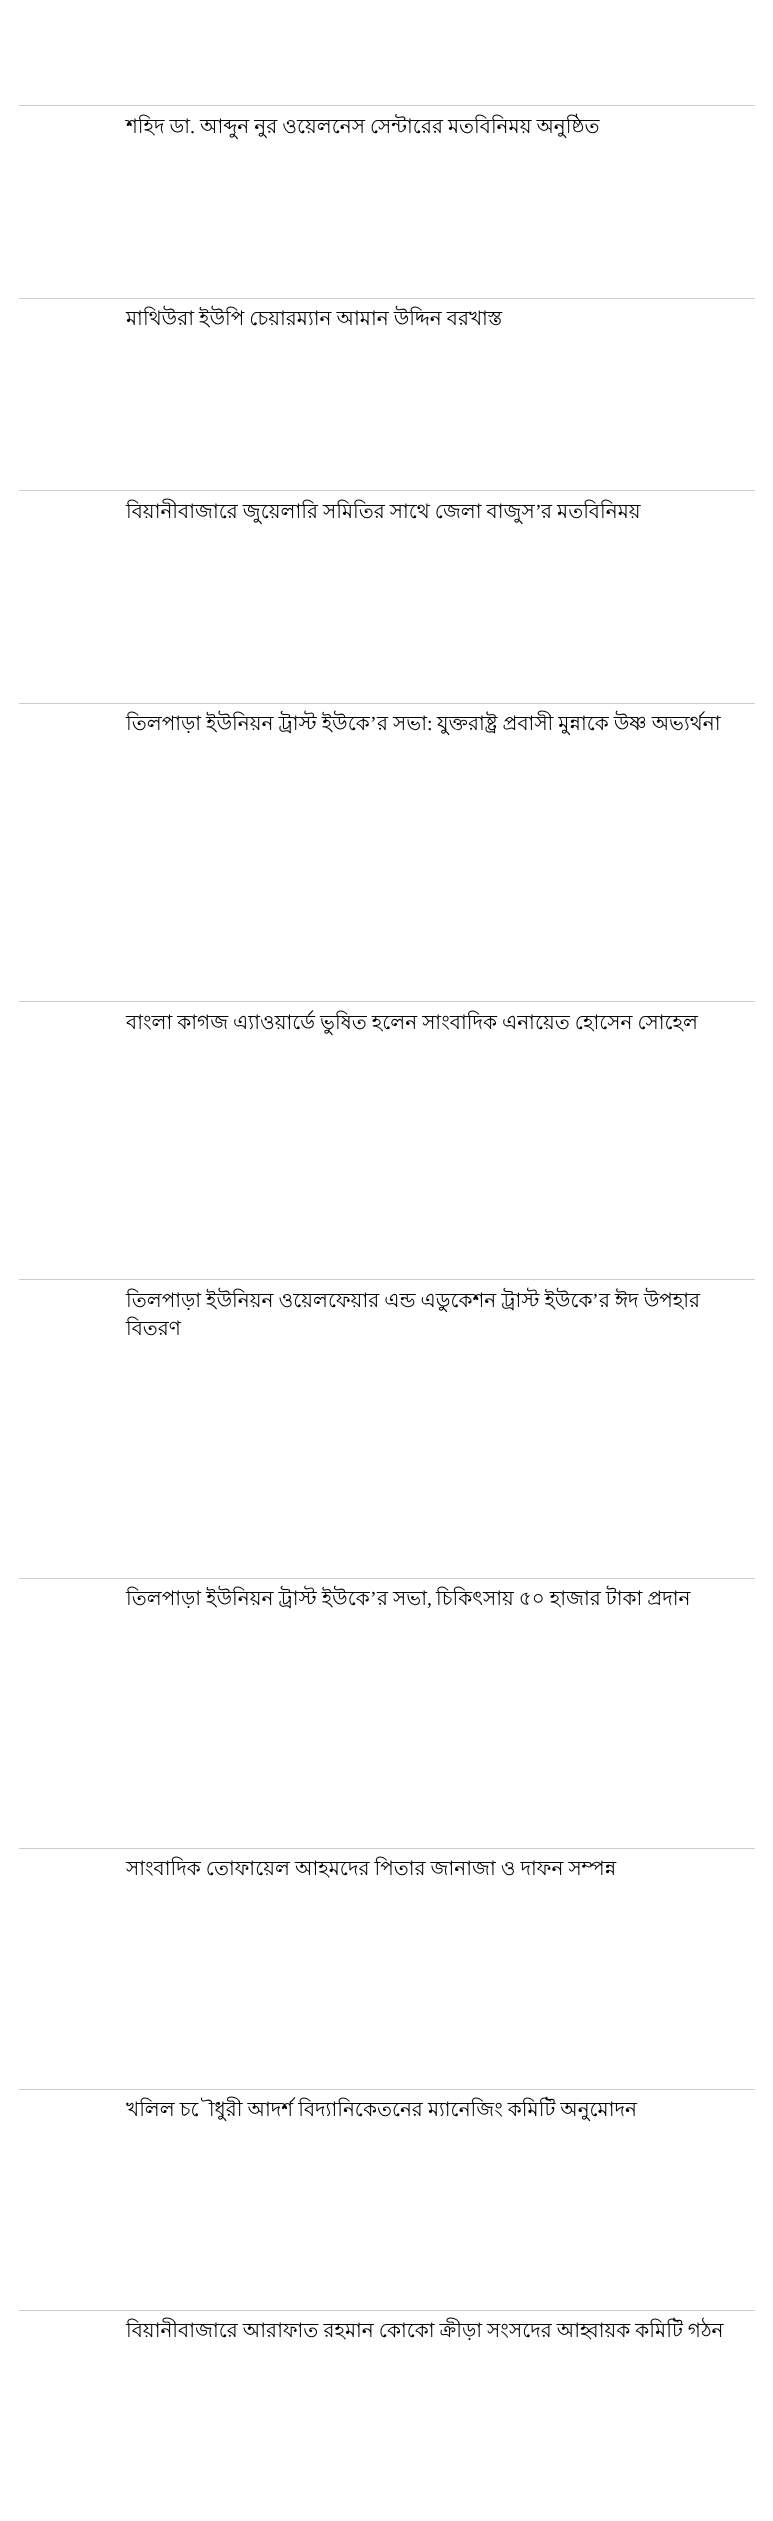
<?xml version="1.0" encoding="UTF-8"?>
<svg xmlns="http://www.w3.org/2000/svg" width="773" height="2521">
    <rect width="100%" height="100%" fill="#FFFFFF"/>
    <rect x="19" y="105" width="736" height="1" fill="#CCCCCC"/>
    <rect x="19" y="298" width="736" height="1" fill="#CCCCCC"/>
    <text x="126" y="133" word-spacing="-0.5" font-family="Lohit Bengali" font-size="20" fill="#000000">শহিদ ডা</text>
    <text x="190" y="133" font-family="Liberation Serif" font-size="20" fill="#000000">.</text>
    <text x="200" y="133" word-spacing="-0.5" font-family="Lohit Bengali" font-size="20" fill="#000000">আব্দুন নুর ওয়েলনেস সেন্টারের মতবিনিময় অনুষ্ঠিত</text>
    <rect x="19" y="490" width="736" height="1" fill="#CCCCCC"/>
    <text x="126" y="325" word-spacing="-0.5" font-family="Lohit Bengali" font-size="20" fill="#000000">মাথিউরা ইউপি চেয়ারম্যান আমান উদ্দিন বরখাস্ত</text>
    <rect x="19" y="703" width="736" height="1" fill="#CCCCCC"/>
    <text x="126" y="518" word-spacing="-0.5" font-family="Lohit Bengali" font-size="20" fill="#000000">বিয়ানীবাজারে জুয়েলারি সমিতির সাথে জেলা বাজুস</text>
    <text x="535" y="518" font-family="Liberation Serif" font-size="20" fill="#000000">’</text>
    <text x="541" y="518" word-spacing="-0.5" font-family="Lohit Bengali" font-size="20" fill="#000000">র মতবিনিময়</text>
    <rect x="19" y="1001" width="736" height="1" fill="#CCCCCC"/>
    <text x="126" y="730" word-spacing="-0.5" font-family="Lohit Bengali" font-size="20" fill="#000000">তিলপাড়া ইউনিয়ন ট্রাস্ট ইউকে</text>
    <text x="370" y="730" font-family="Liberation Serif" font-size="20" fill="#000000">’</text>
    <text x="377" y="730" word-spacing="-0.5" font-family="Lohit Bengali" font-size="20" fill="#000000">র সভা</text>
    <text x="427" y="730" font-family="Liberation Serif" font-size="20" fill="#000000">:</text>
    <text x="437" y="730" word-spacing="-0.5" font-family="Lohit Bengali" font-size="20" fill="#000000">যুক্তরাষ্ট্র প্রবাসী মুন্নাকে উষ্ণ অভ্যর্থনা</text>
    <rect x="19" y="1279" width="736" height="1" fill="#CCCCCC"/>
    <text x="126" y="1029" word-spacing="-0.5" font-family="Lohit Bengali" font-size="20" fill="#000000">বাংলা কাগজ এ্যাওয়ার্ডে ভুষিত হলেন সাংবাদিক এনায়েত হোসেন সোহেল</text>
    <rect x="19" y="1578" width="736" height="1" fill="#CCCCCC"/>
    <text x="126" y="1307" word-spacing="-0.5" font-family="Lohit Bengali" font-size="20" fill="#000000">তিলপাড়া ইউনিয়ন ওয়েলফেয়ার এন্ড এডুকেশন ট্রাস্ট ইউকে</text>
    <text x="592" y="1307" font-family="Liberation Serif" font-size="20" fill="#000000">’</text>
    <text x="599" y="1307" word-spacing="-0.5" font-family="Lohit Bengali" font-size="20" fill="#000000">র ঈদ উপহার</text>
    <text x="126" y="1335" font-family="Lohit Bengali" font-size="20" fill="#000000">বিতরণ</text>
    <rect x="19" y="1848" width="736" height="1" fill="#CCCCCC"/>
    <text x="126" y="1605" word-spacing="-0.5" font-family="Lohit Bengali" font-size="20" fill="#000000">তিলপাড়া ইউনিয়ন ট্রাস্ট ইউকে</text>
    <text x="370" y="1605" font-family="Liberation Serif" font-size="20" fill="#000000">’</text>
    <text x="377" y="1605" word-spacing="-0.5" font-family="Lohit Bengali" font-size="20" fill="#000000">র সভা</text>
    <text x="436" y="1605" word-spacing="-0.5" font-family="Lohit Bengali" font-size="20" fill="#000000">চিকিৎসায় ৫০ হাজার টাকা প্রদান</text>
    <text x="427" y="1605" font-family="Liberation Serif" font-size="20" fill="#000000">,</text>
    <rect x="19" y="2089" width="736" height="1" fill="#CCCCCC"/>
    <text x="126" y="1875" word-spacing="-0.5" font-family="Lohit Bengali" font-size="20" fill="#000000">সাংবাদিক তোফায়েল আহমদের পিতার জানাজা ও দাফন সম্পন্ন</text>
    <rect x="19" y="2310" width="736" height="1" fill="#CCCCCC"/>
    <text x="126" y="2116" word-spacing="-0.5" font-family="Lohit Bengali" font-size="20" fill="#000000">খলিল চৌধুরী আদর্শ বিদ্যানিকেতনের ম্যানেজিং কমিটি অনুমোদন</text>
    <text x="126" y="2337" word-spacing="-0.5" font-family="Lohit Bengali" font-size="20" fill="#000000">বিয়ানীবাজারে আরাফাত রহমান কোকো ক্রীড়া সংসদের আহ্বায়ক কমিটি গঠন</text>
</svg>
